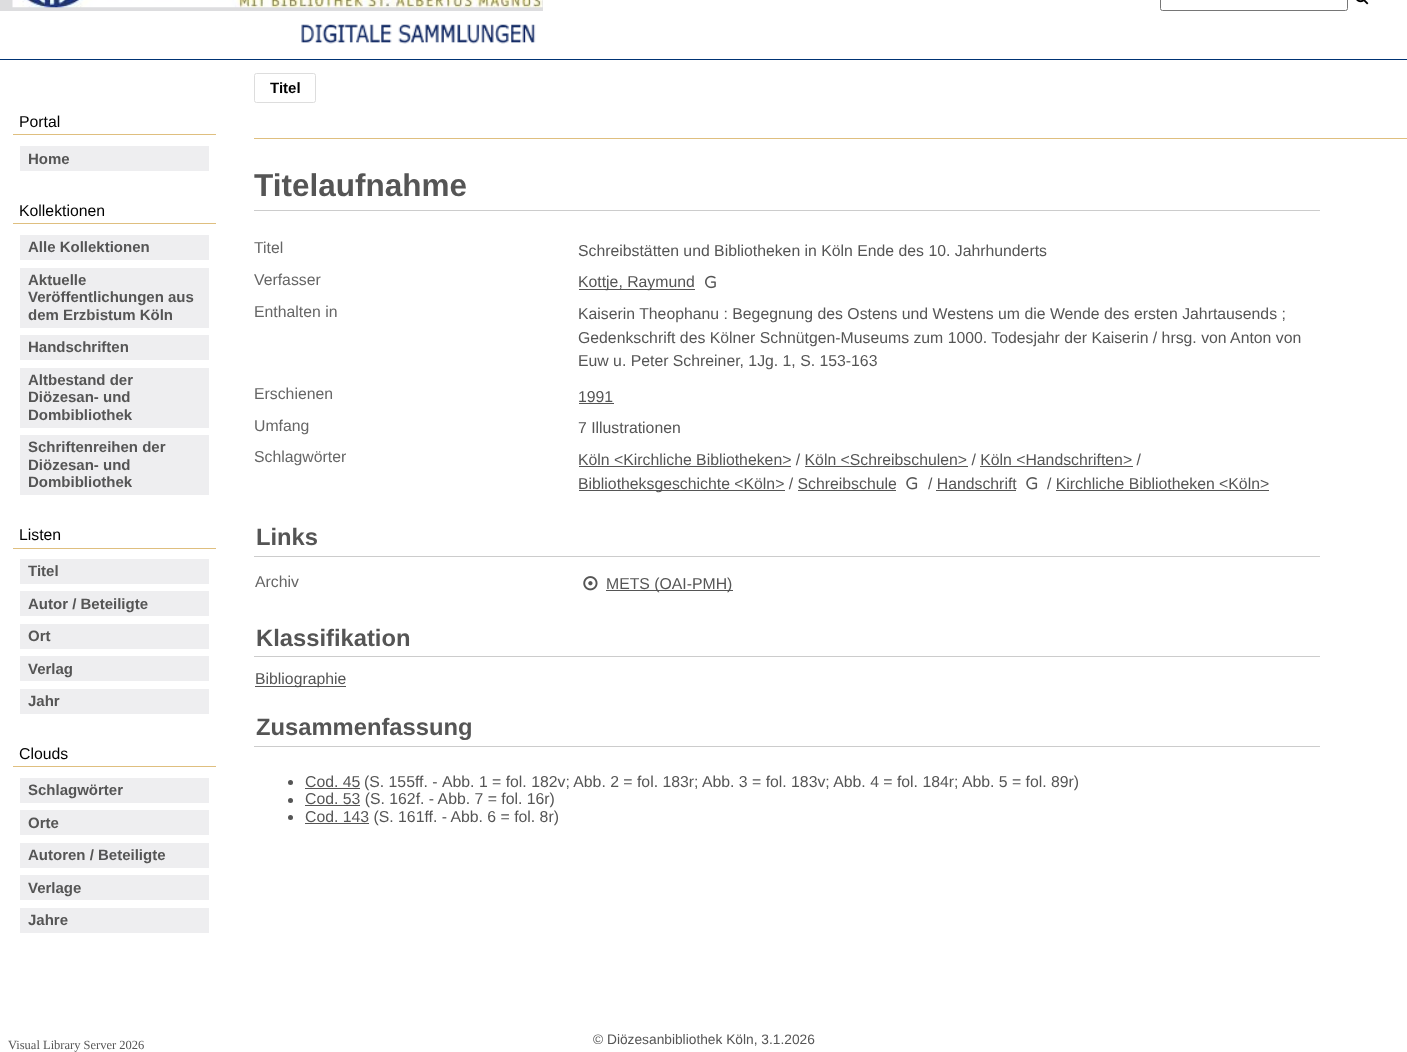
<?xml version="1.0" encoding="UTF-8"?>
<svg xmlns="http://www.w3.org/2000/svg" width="1407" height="1052">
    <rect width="100%" height="100%" fill="#FFFFFF"/>
    <rect x="0" y="59" width="1407" height="1" fill="#003374"/>
    <rect x="0" y="0" width="543" height="11" fill="#DDDDDF"/>
    <image x="12" y="0" width="531" height="8" href="img_01.png"/>
    <image x="301" y="24" width="235" height="20" href="img_02.png"/>
    <rect x="1160.5" y="-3.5" width="187" height="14" rx="2" fill="none" stroke="#767676"/>
    <image x="1356" y="0" width="13" height="5" href="img_03.png"/>
    <rect x="254" y="138" width="1153" height="1" fill="#DFBF7F"/>
    <rect x="254.5" y="73.5" width="61" height="29" rx="2" fill="none" stroke="#DDDDDD"/>
    <text x="270" y="93" font-family="Liberation Sans" font-size="15" font-weight="700" fill="#000000">Titel</text>
    <rect x="13" y="134" width="203" height="1" fill="#DFBF7F"/>
    <text x="19" y="127" font-family="Liberation Sans" font-size="15.8" fill="#000000">Portal</text>
    <rect x="20" y="146" width="189" height="25" fill="#EEEEF0"/>
    <text x="28" y="164" font-family="Liberation Sans" font-size="15" font-weight="700" fill="#555555">Home</text>
    <rect x="13" y="223" width="203" height="1" fill="#DFBF7F"/>
    <text x="19" y="216" font-family="Liberation Sans" font-size="15.8" fill="#000000">Kollektionen</text>
    <rect x="20" y="235" width="189" height="25" fill="#EEEEF0"/>
    <text x="28" y="252" font-family="Liberation Sans" font-size="15" font-weight="700" fill="#555555">Alle Kollektionen</text>
    <rect x="20" y="268" width="189" height="60" fill="#EEEEF0"/>
    <text font-family="Liberation Sans" font-size="15" font-weight="700" fill="#555555">
        <tspan x="28" y="285">Aktuelle</tspan>
        <tspan x="28" y="302">Veröffentlichungen aus</tspan>
        <tspan x="28" y="320">dem Erzbistum Köln</tspan>
    </text>
    <rect x="20" y="335" width="189" height="25" fill="#EEEEF0"/>
    <text x="28" y="352" font-family="Liberation Sans" font-size="15" font-weight="700" fill="#555555">Handschriften</text>
    <rect x="20" y="368" width="189" height="60" fill="#EEEEF0"/>
    <text font-family="Liberation Sans" font-size="15" font-weight="700" fill="#555555">
        <tspan x="28" y="385">Altbestand der</tspan>
        <tspan x="28" y="402">Diözesan- und</tspan>
        <tspan x="28" y="420">Dombibliothek</tspan>
    </text>
    <rect x="20" y="435" width="189" height="60" fill="#EEEEF0"/>
    <text font-family="Liberation Sans" font-size="15" font-weight="700" fill="#555555">
        <tspan x="28" y="452">Schriftenreihen der</tspan>
        <tspan x="28" y="470">Diözesan- und</tspan>
        <tspan x="28" y="487">Dombibliothek</tspan>
    </text>
    <rect x="13" y="548" width="203" height="1" fill="#DFBF7F"/>
    <text x="19" y="540" font-family="Liberation Sans" font-size="15.8" fill="#000000">Listen</text>
    <rect x="20" y="559" width="189" height="25" fill="#EEEEF0"/>
    <text x="28" y="576" font-family="Liberation Sans" font-size="15" font-weight="700" fill="#555555">Titel</text>
    <rect x="20" y="591" width="189" height="25" fill="#EEEEF0"/>
    <text x="28" y="609" font-family="Liberation Sans" font-size="15" font-weight="700" fill="#555555">Autor / Beteiligte</text>
    <rect x="20" y="624" width="189" height="25" fill="#EEEEF0"/>
    <text x="28" y="641" font-family="Liberation Sans" font-size="15" font-weight="700" fill="#555555">Ort</text>
    <rect x="20" y="656" width="189" height="25" fill="#EEEEF0"/>
    <text x="28" y="674" font-family="Liberation Sans" font-size="15" font-weight="700" fill="#555555">Verlag</text>
    <rect x="20" y="689" width="189" height="25" fill="#EEEEF0"/>
    <text x="28" y="706" font-family="Liberation Sans" font-size="15" font-weight="700" fill="#555555">Jahr</text>
    <rect x="13" y="766" width="203" height="1" fill="#DFBF7F"/>
    <text x="19" y="759" font-family="Liberation Sans" font-size="15.8" fill="#000000">Clouds</text>
    <rect x="20" y="778" width="189" height="25" fill="#EEEEF0"/>
    <text x="28" y="795" font-family="Liberation Sans" font-size="15" font-weight="700" fill="#555555">Schlagwörter</text>
    <rect x="20" y="810" width="189" height="25" fill="#EEEEF0"/>
    <text x="28" y="828" font-family="Liberation Sans" font-size="15" font-weight="700" fill="#555555">Orte</text>
    <rect x="20" y="843" width="189" height="25" fill="#EEEEF0"/>
    <text x="28" y="860" font-family="Liberation Sans" font-size="15" font-weight="700" fill="#555555">Autoren / Beteiligte</text>
    <rect x="20" y="875" width="189" height="25" fill="#EEEEF0"/>
    <text x="28" y="893" font-family="Liberation Sans" font-size="15" font-weight="700" fill="#555555">Verlage</text>
    <rect x="20" y="908" width="189" height="25" fill="#EEEEF0"/>
    <text x="28" y="925" font-family="Liberation Sans" font-size="15" font-weight="700" fill="#555555">Jahre</text>
    <rect x="254" y="210" width="1066" height="1" fill="#CCCCCC"/>
    <text x="254" y="196" font-family="Liberation Sans" font-size="31.5" font-weight="700" fill="#555555">Titelaufnahme</text>
    <text x="254" y="253" font-family="Liberation Sans" font-size="15.8" fill="#666666">Titel</text>
    <text x="578" y="256" font-family="Liberation Sans" font-size="15.8" fill="#555555">Schreibstätten und Bibliotheken in Köln Ende des 10. Jahrhunderts</text>
    <text x="254" y="285" font-family="Liberation Sans" font-size="15.8" fill="#666666">Verfasser</text>
    <rect x="579" y="289" width="116" height="1" fill="#555555"/>
    <text x="578" y="287" font-family="Liberation Sans" font-size="15.8" fill="#555555">Kottje, Raymund</text>
    <image x="705" y="275" width="11" height="14" href="img_04.png"/>
    <text x="254" y="317" font-family="Liberation Sans" font-size="15.8" fill="#666666">Enthalten in</text>
    <text font-family="Liberation Sans" font-size="15.8" fill="#555555">
        <tspan x="578" y="319">Kaiserin Theophanu : Begegnung des Ostens und Westens um die Wende des ersten Jahrtausends ;</tspan>
        <tspan x="578" y="343">Gedenkschrift des Kölner Schnütgen-Museums zum 1000. Todesjahr der Kaiserin / hrsg. von Anton von</tspan>
        <tspan x="578" y="366">Euw u. Peter Schreiner, 1Jg. 1, S. 153-163</tspan>
    </text>
    <text x="254" y="399" font-family="Liberation Sans" font-size="15.8" fill="#666666">Erschienen</text>
    <text x="578" y="402" font-family="Liberation Sans" font-size="15.8" fill="#555555">1991</text>
    <rect x="579" y="403" width="35" height="1" fill="#555555"/>
    <text x="254" y="431" font-family="Liberation Sans" font-size="15.8" fill="#666666">Umfang</text>
    <text x="578" y="433" font-family="Liberation Sans" font-size="15.8" fill="#555555">7 Illustrationen</text>
    <text x="254" y="462" font-family="Liberation Sans" font-size="15.8" fill="#666666">Schlagwörter</text>
    <text x="578" y="465" font-family="Liberation Sans" font-size="15.8" fill="#555555">Köln &lt;Kirchliche Bibliotheken&gt; / Köln &lt;Schreibschulen&gt; / Köln &lt;Handschriften&gt; /</text>
    <rect x="579" y="466" width="212" height="1" fill="#555555"/>
    <rect x="805" y="466" width="163" height="1" fill="#555555"/>
    <rect x="980" y="466" width="153" height="1" fill="#555555"/>
    <rect x="579" y="490" width="206" height="1" fill="#555555"/>
    <text x="578" y="489" font-family="Liberation Sans" font-size="15.8" fill="#555555">Bibliotheksgeschichte &lt;Köln&gt; / Schreibschule</text>
    <image x="906" y="477" width="12" height="13" href="img_05.png"/>
    <text x="928" y="489" font-family="Liberation Sans" font-size="15.8" fill="#555555">/ Handschrift</text>
    <rect x="798" y="490" width="98" height="1" fill="#555555"/>
    <image x="1026" y="477" width="12" height="13" href="img_05.png"/>
    <text x="1047" y="489" font-family="Liberation Sans" font-size="15.8" fill="#555555">/ Kirchliche Bibliotheken &lt;Köln&gt;</text>
    <rect x="936" y="490" width="80" height="1" fill="#555555"/>
    <rect x="1056" y="490" width="213" height="1" fill="#555555"/>
    <rect x="254" y="556" width="1066" height="1" fill="#CCCCCC"/>
    <text x="256" y="545" font-family="Liberation Sans" font-size="23.75" font-weight="700" fill="#555555">Links</text>
    <text x="255" y="587" font-family="Liberation Sans" font-size="15.8" fill="#666666">Archiv</text>
    <image x="583" y="576" width="15" height="15" href="img_06.png"/>
    <rect x="606" y="590" width="127" height="1" fill="#555555"/>
    <text x="606" y="589" font-family="Liberation Sans" font-size="15.8" fill="#555555">METS (OAI-PMH)</text>
    <rect x="254" y="656" width="1066" height="1" fill="#CCCCCC"/>
    <text x="256" y="646" font-family="Liberation Sans" font-size="23.75" font-weight="700" fill="#555555">Klassifikation</text>
    <rect x="255" y="686" width="91" height="1" fill="#555555"/>
    <text x="255" y="684" font-family="Liberation Sans" font-size="15.8" fill="#555555">Bibliographie</text>
    <rect x="254" y="746" width="1066" height="1" fill="#CCCCCC"/>
    <text x="256" y="735" font-family="Liberation Sans" font-size="23.75" font-weight="700" fill="#555555">Zusammenfassung</text>
    <circle cx="290.5" cy="782.5" r="2.5" fill="#555555"/>
    <text x="305" y="787" font-family="Liberation Sans" font-size="15.8" fill="#555555">Cod. 45</text>
    <rect x="305" y="788" width="55" height="1" fill="#555555"/>
    <text x="364" y="787" font-family="Liberation Sans" font-size="15.8" fill="#555555">(S. 155ff. -</text>
    <text x="442" y="787" font-family="Liberation Sans" font-size="15.8" fill="#555555">Abb. 1 = fol. 182v; Abb. 2 = fol. 183r; Abb. 3 = fol. 183v; Abb. 4 = fol. 184r; Abb. 5 = fol. 89r)</text>
    <circle cx="290.5" cy="800.5" r="2.5" fill="#555555"/>
    <rect x="305" y="805" width="55" height="1" fill="#555555"/>
    <text x="305" y="804" font-family="Liberation Sans" font-size="15.8" fill="#555555">Cod. 53 (S. 162f. - Abb. 7 = fol. 16r)</text>
    <circle cx="290.5" cy="817.5" r="2.5" fill="#555555"/>
    <rect x="305" y="823" width="64" height="1" fill="#555555"/>
    <text x="305" y="822" font-family="Liberation Sans" font-size="15.8" fill="#555555">Cod. 143 (S. 161ff. - Abb. 6 = fol. 8r)</text>
    <text x="8" y="1049" font-family="Liberation Serif" font-size="12.5" fill="#555555">Visual Library Server 2026</text>
    <text x="593" y="1044" font-family="Liberation Sans" font-size="13.75" fill="#555555">© Diözesanbibliothek Köln, 3.1.2026</text>
</svg>
